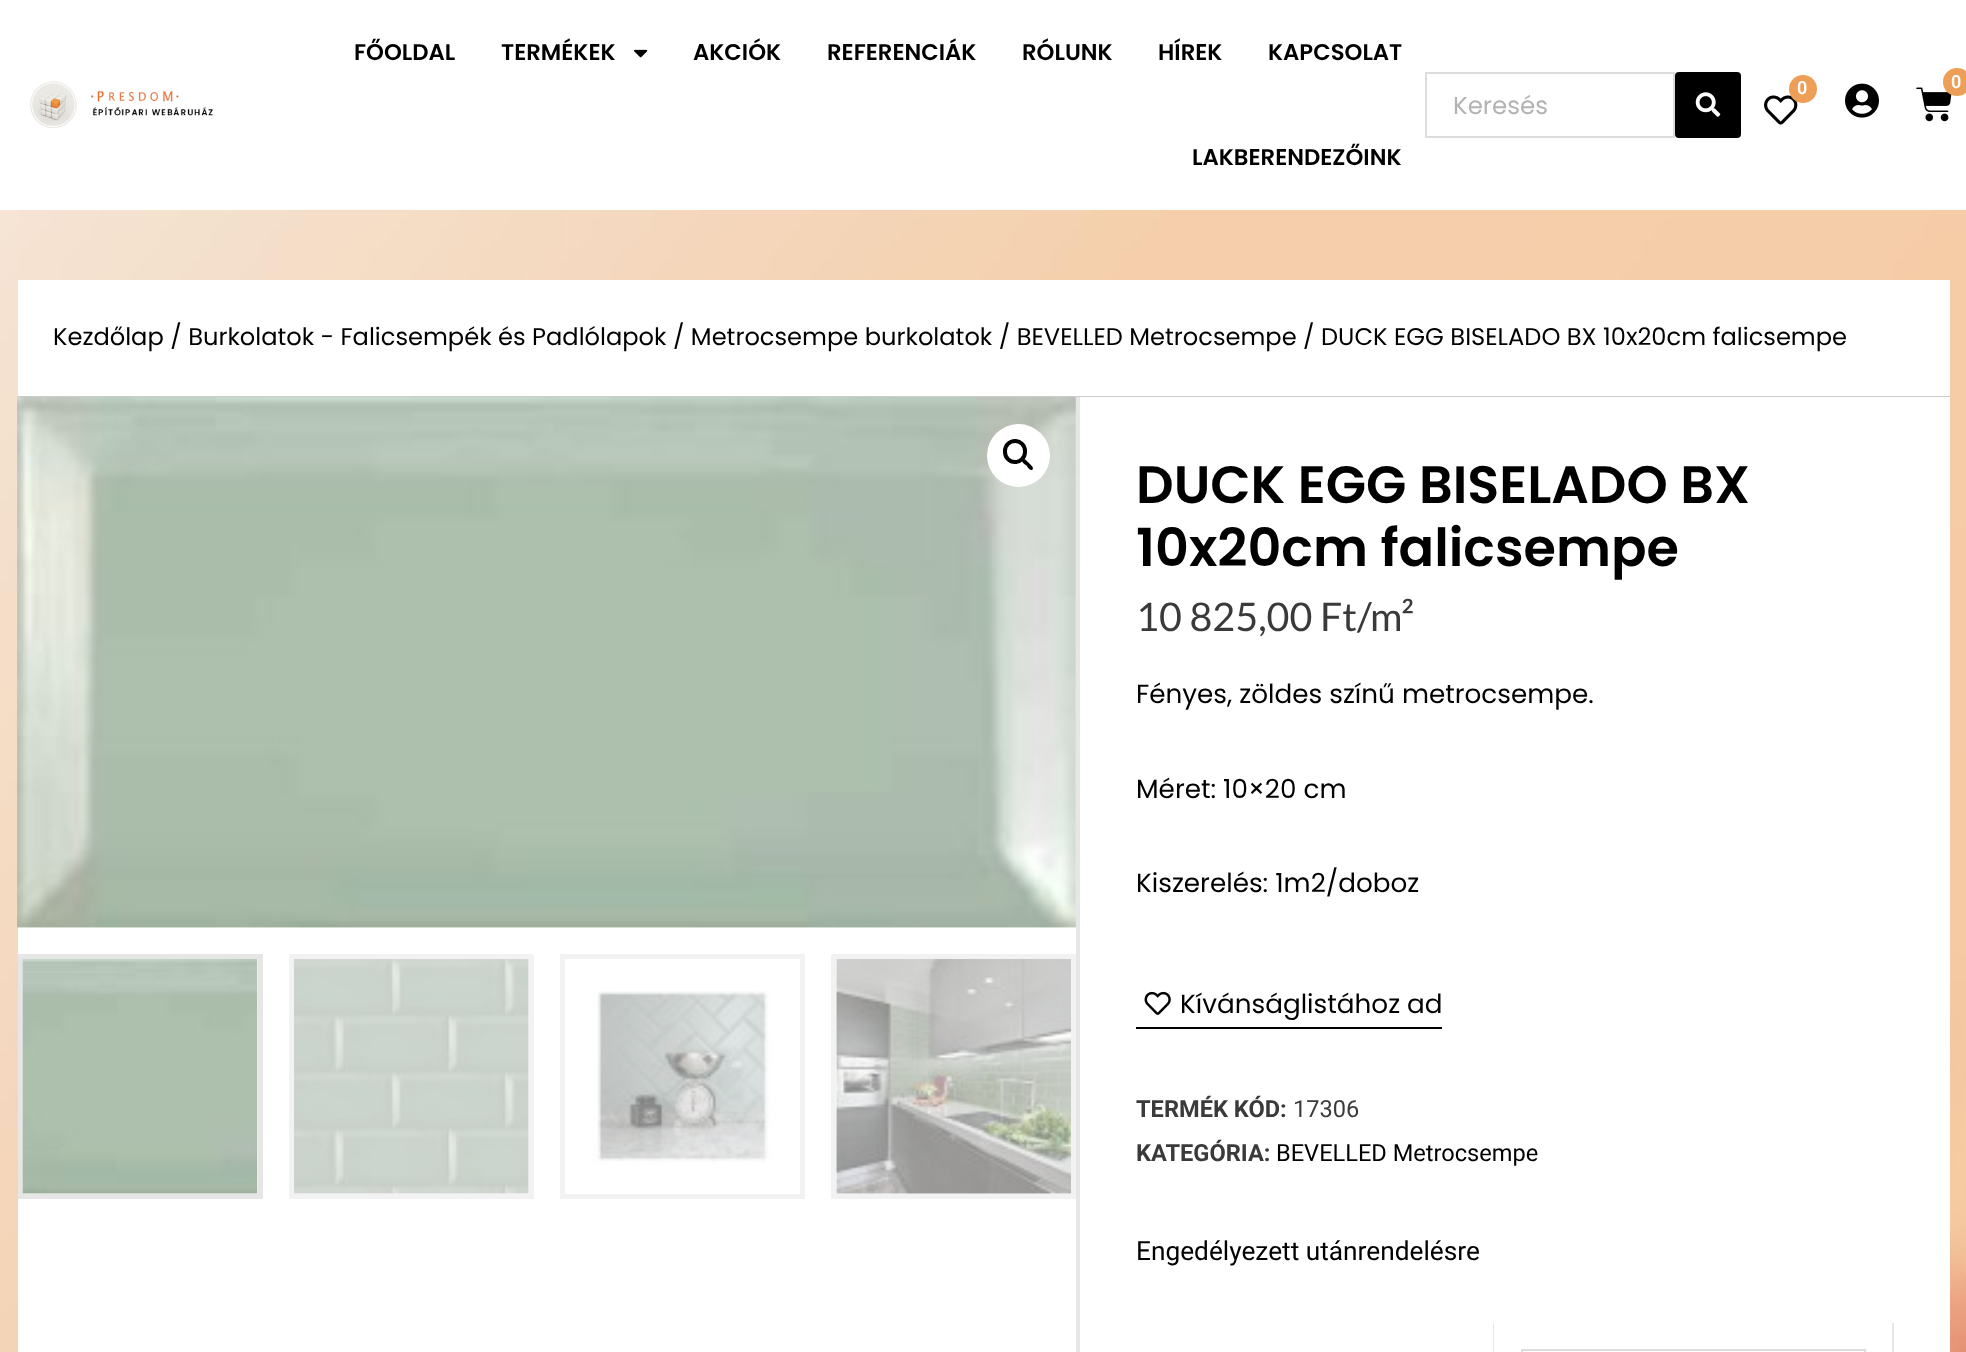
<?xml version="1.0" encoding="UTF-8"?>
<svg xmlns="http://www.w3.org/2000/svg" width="1966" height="1352">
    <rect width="100%" height="100%" fill="#FFFFFF"/>
    <image x="30" y="81" width="183" height="47" href="img_01.png"/>
    <text x="354" y="60" font-family="Poppins" font-size="22.75" font-weight="600" fill="#000000">FŐOLDAL</text>
    <text x="501" y="60" font-family="Poppins" font-size="22.75" font-weight="600" fill="#000000">TERMÉKEK</text>
    <image x="634" y="49" width="14" height="9" href="img_02.png"/>
    <text x="693" y="60" font-family="Poppins" font-size="22.75" font-weight="600" fill="#000000">AKCIÓK</text>
    <text x="827" y="60" font-family="Poppins" font-size="22.75" font-weight="600" fill="#000000">REFERENCIÁK</text>
    <text x="1022" y="60" font-family="Poppins" font-size="22.75" font-weight="600" fill="#000000">RÓLUNK</text>
    <text x="1158" y="60" font-family="Poppins" font-size="22.75" font-weight="600" fill="#000000">HÍREK</text>
    <text x="1268" y="60" font-family="Poppins" font-size="22.75" font-weight="600" fill="#000000">KAPCSOLAT</text>
    <text x="1192" y="165" font-family="Poppins" font-size="22.75" font-weight="600" fill="#000000">LAKBERENDEZŐINK</text>
    <rect x="1426" y="73" width="248" height="64" fill="none" stroke="#DDDDDD" stroke-width="2"/>
    <text x="1453" y="114" font-family="Poppins" font-size="24.5" fill="#B3B3B3">Keresés</text>
    <rect x="1675" y="72" width="66" height="66" rx="4" fill="#000000"/>
    <image x="1695" y="92" width="26" height="25" href="img_03.png"/>
    <image x="1764" y="95" width="34" height="30" href="img_04.png"/>
    <circle cx="1803" cy="89" r="14" fill="#ED9F57"/>
    <text x="1797" y="94" font-family="Roboto" font-size="18" font-weight="600" fill="#FFFFFF">0</text>
    <image x="1845" y="83" width="34" height="35" href="img_05.png"/>
    <image x="1916" y="87" width="36" height="35" href="img_06.png"/>
    <circle cx="1957" cy="82" r="14" fill="#ED9F57"/>
    <text x="1951" y="88" font-family="Roboto" font-size="18" font-weight="600" fill="#FFFFFF">0</text>
    <image x="0" y="210" width="1966" height="1142" href="img_07.png"/>
    <rect x="18" y="280" width="1932" height="1072" fill="#FFFFFF"/>
    <rect x="18" y="396" width="1932" height="1" fill="#000000" fill-opacity="0.2"/>
    <text x="53" y="345" font-family="Poppins" font-size="24.15" fill="#000000">Kezdőlap / Burkolatok - Falicsempék és Padlólapok / Metrocsempe burkolatok / BEVELLED Metrocsempe / DUCK EGG BISELADO BX 10x20cm falicsempe</text>
    <rect x="1076" y="397" width="4" height="955" fill="#E6E6E6"/>
    <image x="17" y="397" width="1059" height="531" href="img_08.png"/>
    <circle cx="1018.5" cy="455.5" r="31.5" fill="#FFFFFF"/>
    <rect x="1005" y="441" width="20" height="21" rx="10" fill="none" stroke="#000000" stroke-width="4"/>
    <path d="M 1022.5 459.5 C 1024.5 457.5 1027.5 462 1029 463 C 1030 464.5 1034.5 467.5 1032.5 469.5 C 1030.5 471.5 1027.5 467 1026.5 465.5 C 1025 464.5 1020.5 461.5 1022.5 459.5 Z" fill="#000000"/>
    <rect x="20.5" y="956.5" width="240" height="240" fill="none" stroke="#E6E6E6" stroke-width="5"/>
    <image x="22" y="959" width="236" height="235" href="img_09.png"/>
    <rect x="291.5" y="956.5" width="240" height="240" fill="none" stroke="#F2F2F2" stroke-width="5"/>
    <image x="294" y="959" width="235" height="235" href="img_10.png"/>
    <rect x="562.5" y="956.5" width="240" height="240" fill="none" stroke="#F2F2F2" stroke-width="5"/>
    <image x="591" y="991" width="181" height="173" href="img_11.png"/>
    <rect x="833.5" y="956.5" width="240" height="240" fill="none" stroke="#F2F2F2" stroke-width="5"/>
    <image x="836" y="959" width="235" height="235" href="img_12.png"/>
    <text font-family="Poppins" font-size="52.5" font-weight="600" fill="#000000">
        <tspan x="1136" y="503">DUCK EGG BISELADO BX</tspan>
        <tspan x="1136" y="566">10x20cm falicsempe</tspan>
    </text>
    <text x="1136" y="631" font-family="Lato" font-size="39.5" fill="#3A3A3A">10 825,00 Ft/m²</text>
    <text x="1136" y="703" font-family="Poppins" font-size="26.25" fill="#000000">Fényes, zöldes színű metrocsempe.</text>
    <text x="1136" y="798" font-family="Poppins" font-size="26.25" fill="#000000">Méret: 10×20 cm</text>
    <text x="1136" y="892" font-family="Poppins" font-size="26.25" fill="#000000">Kiszerelés: 1m2/doboz</text>
    <image x="1144" y="991" width="27" height="24" href="img_13.png"/>
    <text x="1180" y="1013" font-family="Poppins" font-size="26.25" fill="#000000">Kívánságlistához ad</text>
    <rect x="1136" y="1027" width="306" height="2" fill="#000000"/>
    <text x="1136" y="1117" font-family="Roboto" font-size="23.6" font-weight="700" fill="#3A3A3A">TERMÉK KÓD:</text>
    <text x="1293" y="1117" font-family="Roboto" font-size="23.6" fill="#3A3A3A">17306</text>
    <text x="1136" y="1161" font-family="Roboto" font-size="23.6" font-weight="700" fill="#3A3A3A">KATEGÓRIA:</text>
    <text x="1276" y="1161" font-family="Roboto" font-size="23.6" fill="#000000">BEVELLED Metrocsempe</text>
    <text x="1136" y="1260" font-family="Roboto" font-size="26.25" fill="#000000">Engedélyezett utánrendelésre</text>
    <path d="M 1494 1323 V 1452 L 1493 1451 V 1323 Z" fill="#E6E6E6"/>
    <path d="M 1894 1323 V 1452 L 1892 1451 V 1323 Z" fill="#E6E6E6"/>
    <rect x="1522" y="1350" width="343" height="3" fill="none" stroke="#DDDDDD" stroke-width="2"/>
</svg>
